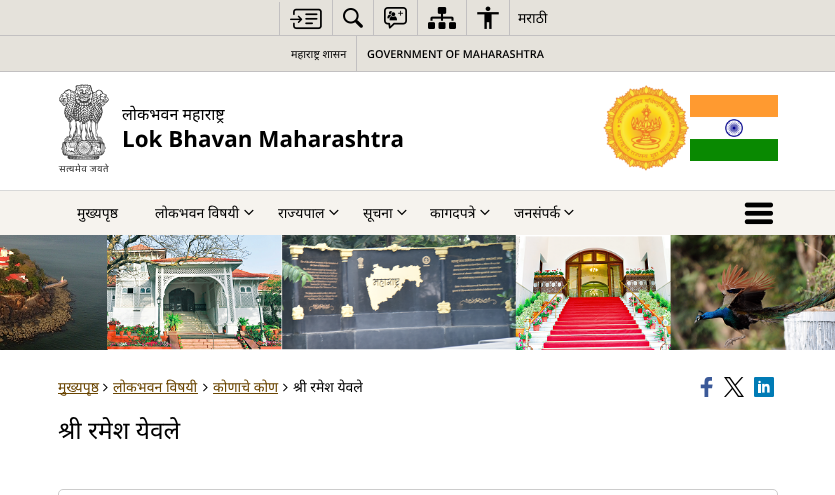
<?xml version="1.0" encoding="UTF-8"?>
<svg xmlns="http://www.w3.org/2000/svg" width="835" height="495">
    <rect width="100%" height="100%" fill="#FFFFFF"/>
    <rect x="0" y="0" width="835" height="71" fill="#E5E2DB"/>
    <rect x="0" y="71" width="835" height="1" fill="#C2C0C1"/>
    <rect x="279" y="2" width="1" height="33" fill="#C2C0C1"/>
    <image x="290" y="8" width="32" height="22" href="img_01.png"/>
    <rect x="332" y="0" width="1" height="35" fill="#C2C0C1"/>
    <image x="343" y="8" width="20" height="20" href="img_02.png"/>
    <rect x="373" y="0" width="1" height="35" fill="#C2C0C1"/>
    <image x="384" y="7" width="23" height="22" href="img_03.png"/>
    <rect x="417" y="0" width="1" height="35" fill="#C2C0C1"/>
    <image x="428" y="7" width="28" height="22" href="img_04.png"/>
    <rect x="466" y="0" width="1" height="35" fill="#C2C0C1"/>
    <image x="477" y="6" width="22" height="23" href="img_05.png"/>
    <rect x="509" y="0" width="1" height="35" fill="#C2C0C1"/>
    <text x="518" y="23" font-family="Noto Sans" font-size="14" fill="#000000">मराठी</text>
    <rect x="356" y="36" width="1" height="35" fill="#C2C0C1"/>
    <text x="291" y="58" font-family="Noto Sans" font-size="10.9" fill="#000000">महाराष्ट्र शासन</text>
    <text x="367" y="58" font-family="Open Sans" font-size="10.9" font-weight="600" fill="#000000">GOVERNMENT OF MAHARASHTRA</text>
    <rect x="0" y="35" width="835" height="1" fill="#C2C0C1"/>
    <image x="58" y="84" width="51" height="88" href="img_06.png"/>
    <text x="122" y="120" font-family="Noto Sans" font-size="16" fill="#000000">लोकभवन महाराष्ट्र</text>
    <text x="122" y="147" font-family="Open Sans" font-size="22.4" font-weight="700" fill="#000000">Lok Bhavan Maharashtra</text>
    <image x="603" y="85" width="87" height="86" href="img_07.png"/>
    <image x="690" y="95" width="88" height="66" href="img_08.png"/>
    <rect x="0" y="191" width="835" height="44" fill="#F6F3EE"/>
    <rect x="0" y="190" width="835" height="1" fill="#D8D8D8"/>
    <text x="77" y="218" font-family="Noto Sans" font-size="14" fill="#000000">मुख्यपृष्ठ</text>
    <text x="155" y="218" font-family="Noto Sans" font-size="14" fill="#000000">लोकभवन विषयी</text>
    <image x="244" y="209" width="10" height="7" href="img_09.png"/>
    <text x="278" y="218" font-family="Noto Sans" font-size="14" fill="#000000">राज्यपाल</text>
    <image x="329" y="209" width="10" height="7" href="img_09.png"/>
    <text x="363" y="218" font-family="Noto Sans" font-size="14" fill="#000000">सूचना</text>
    <image x="397" y="209" width="10" height="7" href="img_09.png"/>
    <text x="430" y="218" font-family="Noto Sans" font-size="14" fill="#000000">कागदपत्रे</text>
    <image x="480" y="209" width="10" height="7" href="img_09.png"/>
    <text x="514" y="218" font-family="Noto Sans" font-size="14" fill="#000000">जनसंपर्क</text>
    <image x="564" y="209" width="10" height="7" href="img_09.png"/>
    <image x="744" y="202" width="30" height="23" href="img_10.png"/>
    <image x="0" y="235" width="835" height="115" href="img_11.png"/>
    <rect x="58" y="393" width="40" height="1" fill="#6A4501"/>
    <text x="58" y="392" font-family="Noto Sans" font-size="14" fill="#6A4501">मुख्यपृष्ठ</text>
    <image x="103" y="383" width="5" height="9" href="img_12.png"/>
    <text x="113" y="392" font-family="Noto Sans" font-size="14" fill="#6A4501">लोकभवन विषयी</text>
    <rect x="113" y="393" width="85" height="1" fill="#6A4501"/>
    <image x="203" y="383" width="5" height="9" href="img_12.png"/>
    <text x="213" y="392" font-family="Noto Sans" font-size="14" fill="#6A4501">कोणाचे कोण</text>
    <rect x="213" y="393" width="65" height="1" fill="#6A4501"/>
    <image x="283" y="383" width="5" height="9" href="img_12.png"/>
    <text x="293" y="392" font-family="Noto Sans" font-size="14" fill="#000000">श्री रमेश येवले</text>
    <image x="700" y="377" width="13" height="20" href="img_13.png"/>
    <image x="724" y="377" width="20" height="20" href="img_14.png"/>
    <image x="754" y="377" width="20" height="20" href="img_15.png"/>
    <text x="58" y="439" font-family="Noto Sans" font-size="24.5" fill="#000000">श्री रमेश येवले</text>
    <rect x="58.5" y="489.5" width="719" height="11" rx="4.5" fill="none" stroke="#CCCCCC"/>
</svg>
